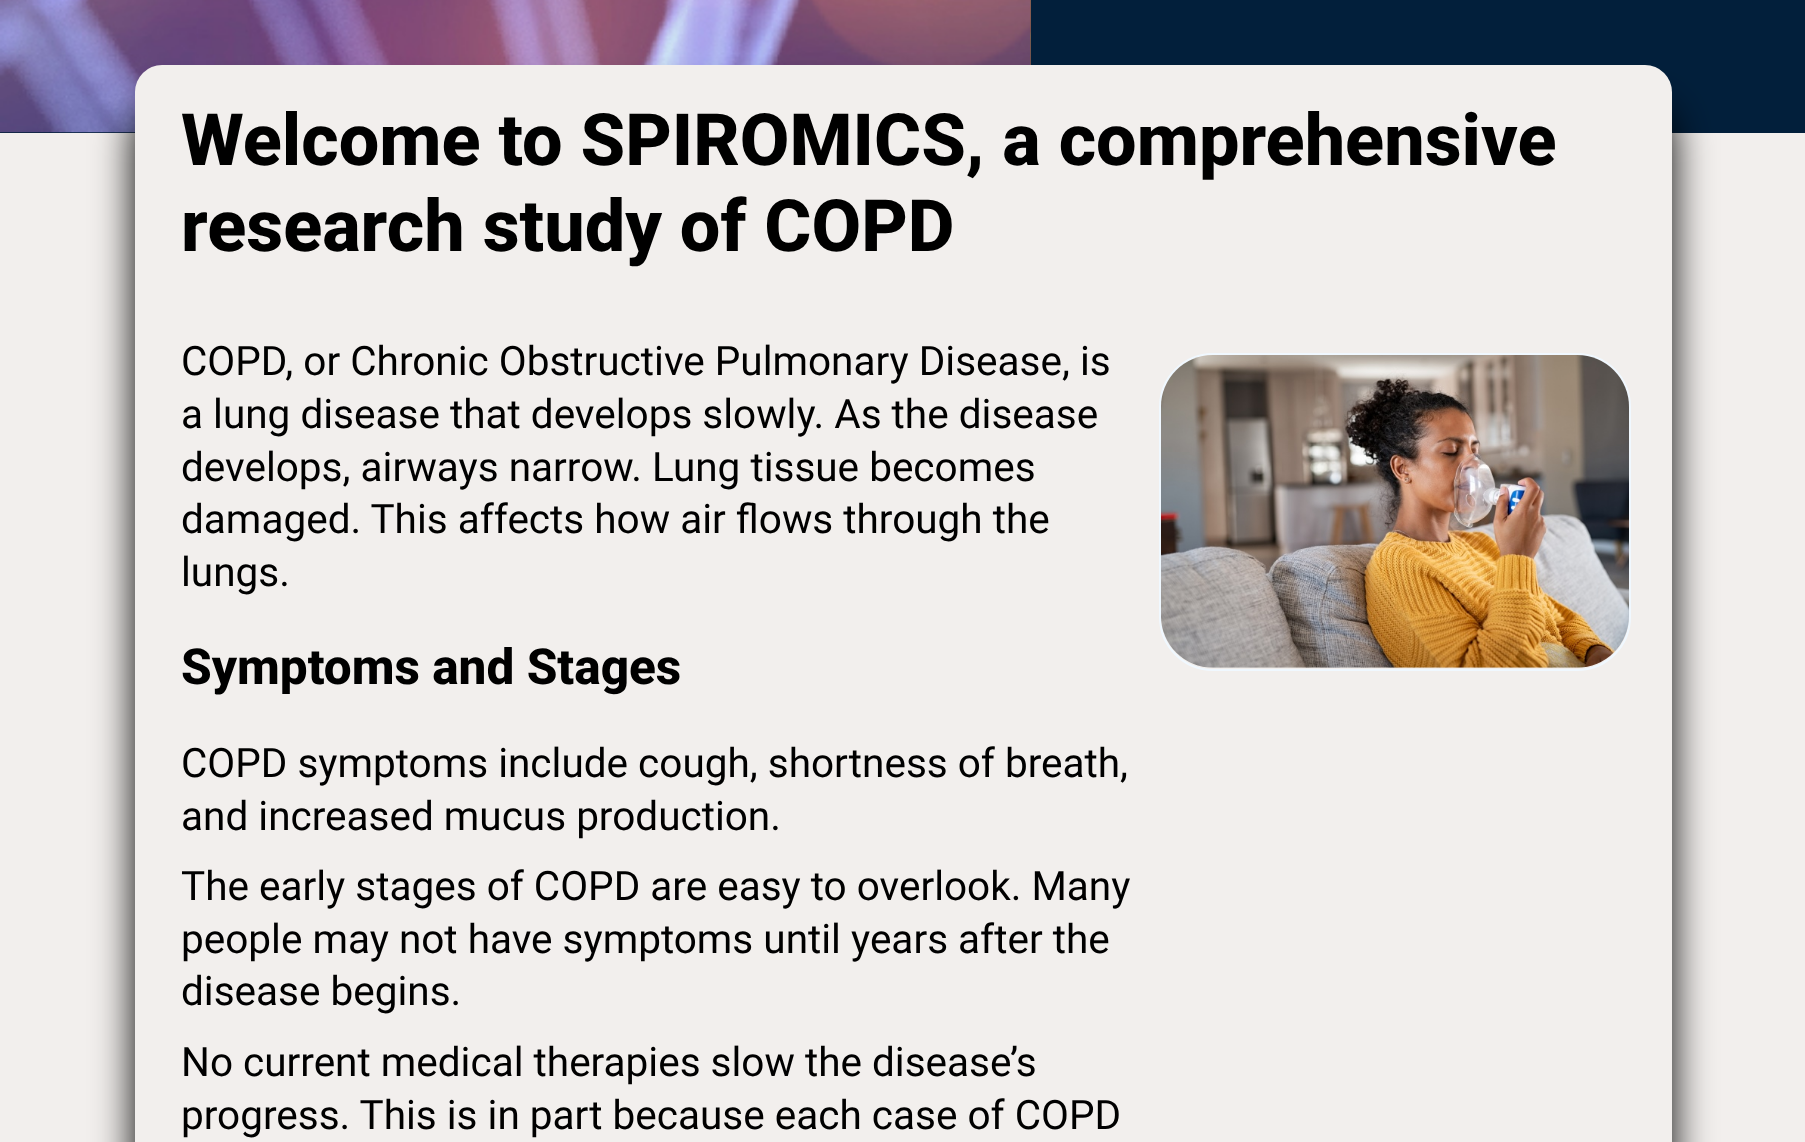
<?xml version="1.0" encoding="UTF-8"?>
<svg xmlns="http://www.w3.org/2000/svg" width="1805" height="1142">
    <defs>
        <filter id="blur1" x="-50%" y="-200%" width="200%" height="500%"><feGaussianBlur stdDeviation="20"/></filter>
    </defs>
    <rect width="100%" height="100%" fill="#F2EFED"/>
    <rect x="0" y="0" width="1805" height="133" fill="#021F3B"/>
    <image x="0" y="0" width="1031" height="133" href="img_01.png"/>
    <image x="0" y="0" width="1031" height="133" href="img_02.png"/>
    <rect x="135" y="106" width="1537" height="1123" rx="27" fill="#000000" filter="url(#blur1)"/>
    <rect x="135" y="65" width="1537" height="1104" rx="27" fill="#F2EFED"/>
    <text font-family="Roboto" font-size="72" font-weight="800" fill="#000000">
        <tspan x="181" y="165">Welcome to SPIROMICS, a comprehensive</tspan>
        <tspan x="181" y="251">research study of COPD</tspan>
    </text>
    <text font-family="Roboto" font-size="40.5" fill="#000000">
        <tspan x="181" y="375">COPD, or Chronic Obstructive Pulmonary Disease, is</tspan>
        <tspan x="181" y="428">a lung disease that develops slowly. As the disease</tspan>
        <tspan x="181" y="481">develops, airways narrow. Lung tissue becomes</tspan>
        <tspan x="181" y="533">damaged. This affects how air flows through the</tspan>
        <tspan x="181" y="586">lungs.</tspan>
    </text>
    <text x="181" y="684" font-family="Roboto" font-size="49.5" font-weight="800" fill="#000000">Symptoms and Stages</text>
    <text font-family="Roboto" font-size="40.5" fill="#000000">
        <tspan x="181" y="777">COPD symptoms include cough, shortness of breath,</tspan>
        <tspan x="181" y="830">and increased mucus production.</tspan>
        <tspan x="181" y="900">The early stages of COPD are easy to overlook. Many</tspan>
        <tspan x="181" y="953">people may not have symptoms until years after the</tspan>
        <tspan x="181" y="1005">disease begins.</tspan>
        <tspan x="181" y="1076">No current medical therapies slow the disease’s</tspan>
        <tspan x="181" y="1129">progress. This is in part because each case of COPD</tspan>
    </text>
    <rect x="1160" y="354" width="470" height="316" rx="53" fill="none" stroke="#F0F8FF" stroke-width="2"/>
    <image x="1161" y="355" width="468" height="313" href="img_03.png"/>
</svg>
